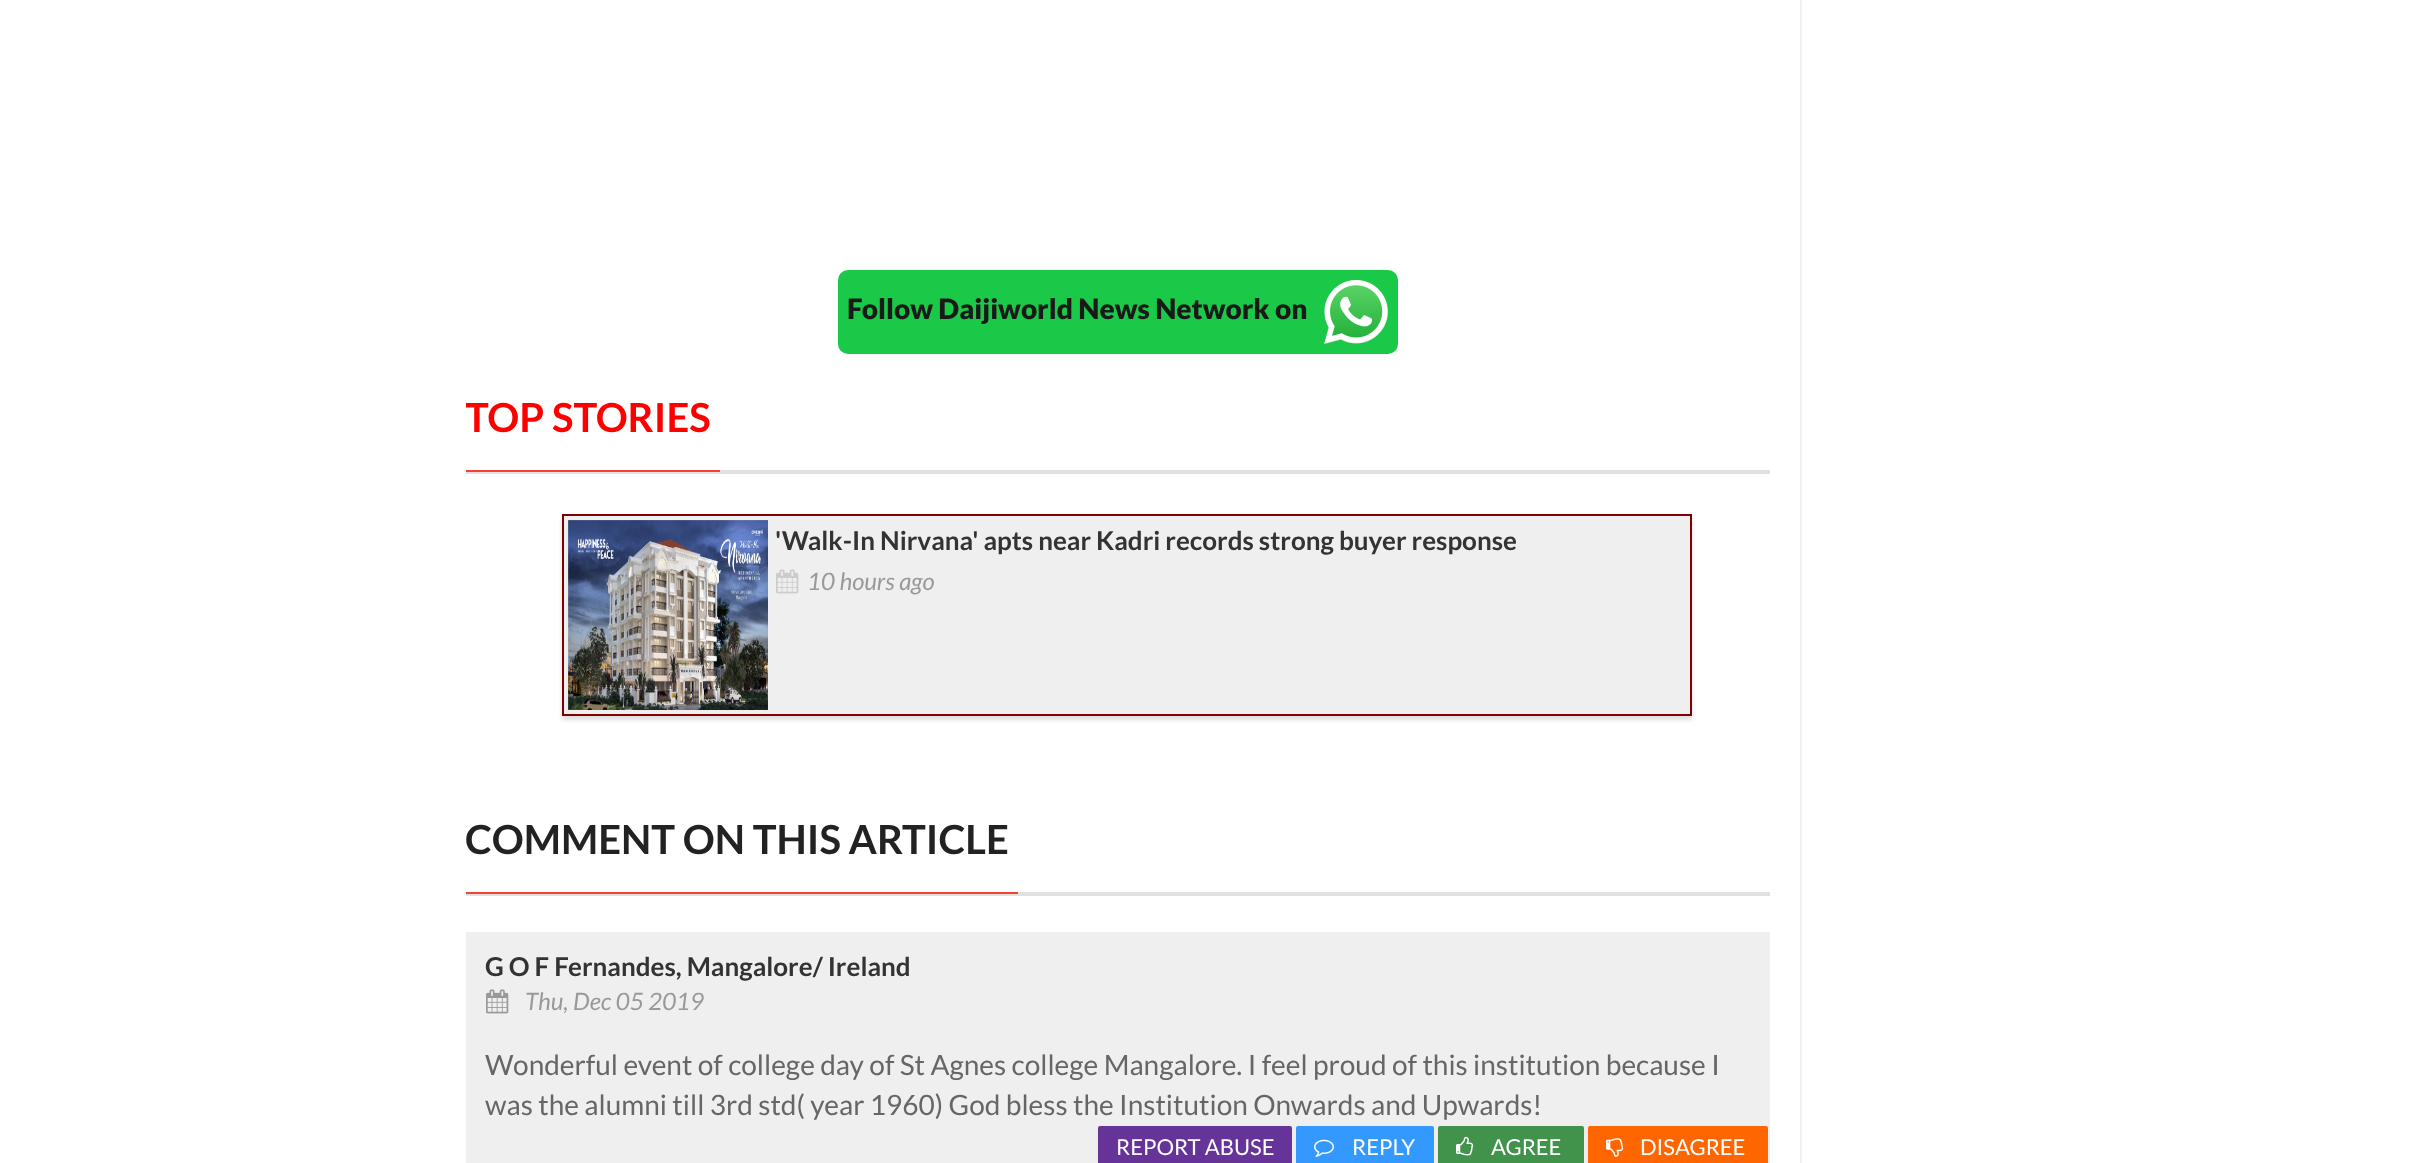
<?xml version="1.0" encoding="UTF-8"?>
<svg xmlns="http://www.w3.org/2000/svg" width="2430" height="1163">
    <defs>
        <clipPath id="clip1"><rect x="466" y="0" width="1304" height="796"/></clipPath>
        <filter id="blur1" x="-50%" y="-200%" width="200%" height="500%"><feGaussianBlur stdDeviation="2"/></filter>
    </defs>
    <rect width="100%" height="100%" fill="#FFFFFF"/>
    <rect x="838" y="270" width="560" height="84" rx="10" fill="#1AC948"/>
    <text x="847" y="319" font-family="Lato" font-size="28" font-weight="900" fill="#1A1919">Follow Daijiworld News Network on</text>
    <image x="1324" y="280" width="64" height="64" href="img_01.png"/>
    <rect x="466" y="470" width="1304" height="4" fill="#E1E1E1"/>
    <rect x="466" y="470" width="254" height="2" fill="#F44336"/>
    <g clip-path="url(#clip1)">
        <text x="465" y="432" font-family="Lato" font-size="40" font-weight="700" fill="#FF0000">TOP STORIES</text>
    </g>
    <rect x="562" y="518" width="1130" height="202" fill="#DEDEDE" filter="url(#blur1)"/>
    <rect x="563" y="515" width="1128" height="200" fill="#EFEFEF" stroke="#800000" stroke-width="2"/>
    <image x="568" y="520" width="200" height="190" href="img_02.png"/>
    <text x="775" y="550" font-family="Lato" font-size="26" font-weight="700" fill="#333333">'Walk-In Nirvana' apts near Kadri records strong buyer response</text>
    <image x="776" y="569" width="23" height="25" href="img_03.png"/>
    <text x="807" y="590" font-family="Lato" font-size="24" font-style="italic" fill="#999999">10 hours ago</text>
    <rect x="466" y="892" width="1304" height="4" fill="#E1E1E1"/>
    <rect x="466" y="892" width="552" height="2" fill="#F44336"/>
    <text x="465" y="854" font-family="Lato" font-size="40" font-weight="700" fill="#222222">COMMENT ON THIS ARTICLE</text>
    <rect x="466" y="932" width="1304" height="231" fill="#EFEFEF"/>
    <text x="485" y="976" font-family="Lato" font-size="26" font-weight="700" fill="#333333">G O F Fernandes, Mangalore/ Ireland</text>
    <image x="486" y="989" width="23" height="25" href="img_04.png"/>
    <text x="525" y="1010" font-family="Lato" font-size="24" font-style="italic" fill="#999999">Thu, Dec 05 2019</text>
    <text font-family="Lato" font-size="28" fill="#666666">
        <tspan x="485" y="1075">Wonderful event of college day of St Agnes college Mangalore. I feel proud of this institution because I</tspan>
        <tspan x="485" y="1115">was the alumni till 3rd std( year 1960) God bless the Institution Onwards and Upwards!</tspan>
    </text>
    <rect x="1097" y="1125" width="196" height="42" rx="3" fill="#663399" stroke="#EEEEEE" stroke-width="2"/>
    <text x="1116" y="1155" font-family="Lato" font-size="22" fill="#FFFFFF">REPORT ABUSE</text>
    <rect x="1295" y="1125" width="140" height="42" rx="3" fill="#3399FF" stroke="#EEEEEE" stroke-width="2"/>
    <image x="1314" y="1139" width="20" height="18" href="img_05.png"/>
    <text x="1352" y="1155" font-family="Lato" font-size="22" fill="#FFFFFF">REPLY</text>
    <rect x="1437" y="1125" width="148" height="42" rx="3" fill="#41924B" stroke="#EEEEEE" stroke-width="2"/>
    <image x="1456" y="1136" width="18" height="20" href="img_06.png"/>
    <text x="1491" y="1155" font-family="Lato" font-size="22" fill="#FFFFFF">AGREE</text>
    <rect x="1587" y="1125" width="182" height="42" rx="3" fill="#FF6600" stroke="#EEEEEE" stroke-width="2"/>
    <image x="1606" y="1138" width="18" height="19" href="img_07.png"/>
    <text x="1640" y="1155" font-family="Lato" font-size="22" fill="#FFFFFF">DISAGREE</text>
    <rect x="1800" y="0" width="2" height="1163" fill="#F0F0F0"/>
</svg>
